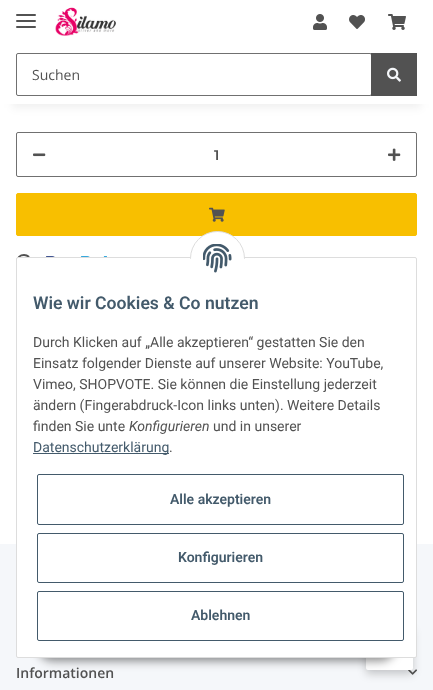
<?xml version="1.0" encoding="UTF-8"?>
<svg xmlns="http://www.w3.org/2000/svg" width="433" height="690">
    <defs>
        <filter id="blur1" x="-50%" y="-200%" width="200%" height="500%"><feGaussianBlur stdDeviation="4.5"/></filter>
        <filter id="blur2" x="-50%" y="-200%" width="200%" height="500%"><feGaussianBlur stdDeviation="4"/></filter>
        <filter id="blur3" x="-50%" y="-200%" width="200%" height="500%"><feGaussianBlur stdDeviation="5"/></filter>
    </defs>
    <rect width="100%" height="100%" fill="#F5F7FA"/>
    <rect x="0" y="104" width="433" height="440" fill="#FFFFFF"/>
    <rect x="12" y="28" width="409" height="80" fill="#000000" fill-opacity="0.06" filter="url(#blur1)"/>
    <rect x="0" y="0" width="433" height="104" fill="#FFFFFF"/>
    <rect x="16" y="20" width="20" height="2" rx="1" fill="#525252"/>
    <rect x="16" y="14" width="20" height="2" rx="1" fill="#525252"/>
    <rect x="16" y="26" width="20" height="2" rx="1" fill="#525252"/>
    <image x="55" y="7" width="61" height="29" href="img_01.png"/>
    <image x="313" y="14" width="14" height="16" href="img_02.png"/>
    <image x="349" y="15" width="16" height="14" href="img_03.png"/>
    <image x="388" y="14" width="18" height="16" href="img_04.png"/>
    <rect x="16.5" y="53.5" width="355" height="42" rx="1.5" fill="none" stroke="#707070"/>
    <text x="32" y="80" font-family="Open Sans" font-size="14" fill="#525252">Suchen</text>
    <rect x="371" y="53" width="46" height="43" fill="#525252"/>
    <image x="387" y="67" width="14" height="15" href="img_05.png"/>
    <rect x="16.5" y="132.5" width="400" height="44" rx="1.5" fill="none" stroke="#707070"/>
    <image x="33" y="153" width="13" height="4" href="img_06.png"/>
    <text x="214" y="160" font-family="Montserrat" font-size="14" font-weight="600" fill="#525252">1</text>
    <image x="388" y="148" width="13" height="13" href="img_07.png"/>
    <rect x="16.5" y="193.5" width="400" height="42" rx="1.5" fill="#F8BF00" stroke="#F8BF00"/>
    <image x="209" y="207" width="16" height="15" href="img_08.png"/>
    <path d="M 29 267 C 27.5 268.5 25 269.5 22.5 269 C 14.5 267 15.5 255 24 255 C 26 255 27.5 255.5 29 257" fill="none" stroke="#525252" stroke-width="2"/>
    <image x="46" y="256" width="61" height="1" href="img_09.png"/>
    <image x="408" y="669" width="9" height="6" href="img_11.png"/>
    <rect x="366" y="630" width="47" height="44" rx="2" fill="#000000" fill-opacity="0.2" filter="url(#blur2)"/>
    <rect x="366" y="626" width="47" height="44" rx="2" fill="#FFFFFF"/>
    <rect x="37" y="629" width="359" height="32" rx="16" fill="#000000" fill-opacity="0.45" filter="url(#blur3)"/>
    <rect x="16.5" y="257.5" width="400" height="400" rx="1.5" fill="#FFFFFF" stroke="#DDDDDD"/>
    <circle cx="217.5" cy="258.5" r="27" fill="#FFFFFF" stroke="#DDDDDD"/>
    <rect x="190" y="259" width="55" height="27" fill="#FFFFFF"/>
    <image x="203" y="244" width="29" height="29" href="img_10.png"/>
    <text x="33" y="309" font-family="Roboto" font-size="17.6" font-weight="600" fill="#435A6B">Wie wir Cookies &amp; Co nutzen</text>
    <text font-family="Roboto" font-size="14" fill="#525252">
        <tspan x="33" y="347">Durch Klicken auf „Alle akzeptieren“ gestatten Sie den</tspan>
        <tspan x="33" y="368">Einsatz folgender Dienste auf unserer Website: YouTube,</tspan>
        <tspan x="33" y="389">Vimeo, SHOPVOTE. Sie können die Einstellung jederzeit</tspan>
        <tspan x="33" y="410">ändern (Fingerabdruck-Icon links unten). Weitere Details</tspan>
        <tspan x="33" y="431">finden Sie unte</tspan>
    </text>
    <text x="129" y="431" font-family="Roboto" font-size="14" font-style="italic" fill="#525252">Konfigurieren</text>
    <text x="213" y="431" font-family="Roboto" font-size="14" fill="#525252">und in unserer</text>
    <rect x="33" y="453" width="136" height="1" fill="#435A6B"/>
    <text x="33" y="452" font-family="Roboto" font-size="14" fill="#435A6B">Datenschutzerklärung</text>
    <text x="169" y="452" font-family="Roboto" font-size="14" fill="#525252">.</text>
    <rect x="37.5" y="474.5" width="366" height="50" rx="1.5" fill="none" stroke="#435A6B"/>
    <text x="170" y="504" font-family="Roboto" font-size="14" font-weight="600" fill="#435A6B">Alle akzeptieren</text>
    <rect x="37.5" y="533.5" width="366" height="49" rx="1.5" fill="none" stroke="#435A6B"/>
    <text x="178" y="562" font-family="Roboto" font-size="14" font-weight="600" fill="#435A6B">Konfigurieren</text>
    <rect x="37.5" y="591.5" width="366" height="49" rx="1.5" fill="none" stroke="#435A6B"/>
    <text x="191" y="620" font-family="Roboto" font-size="14" font-weight="600" fill="#435A6B">Ablehnen</text>
    <text x="16" y="678" font-family="Open Sans" font-size="14" font-weight="600" fill="#525252">Informationen</text>
</svg>
